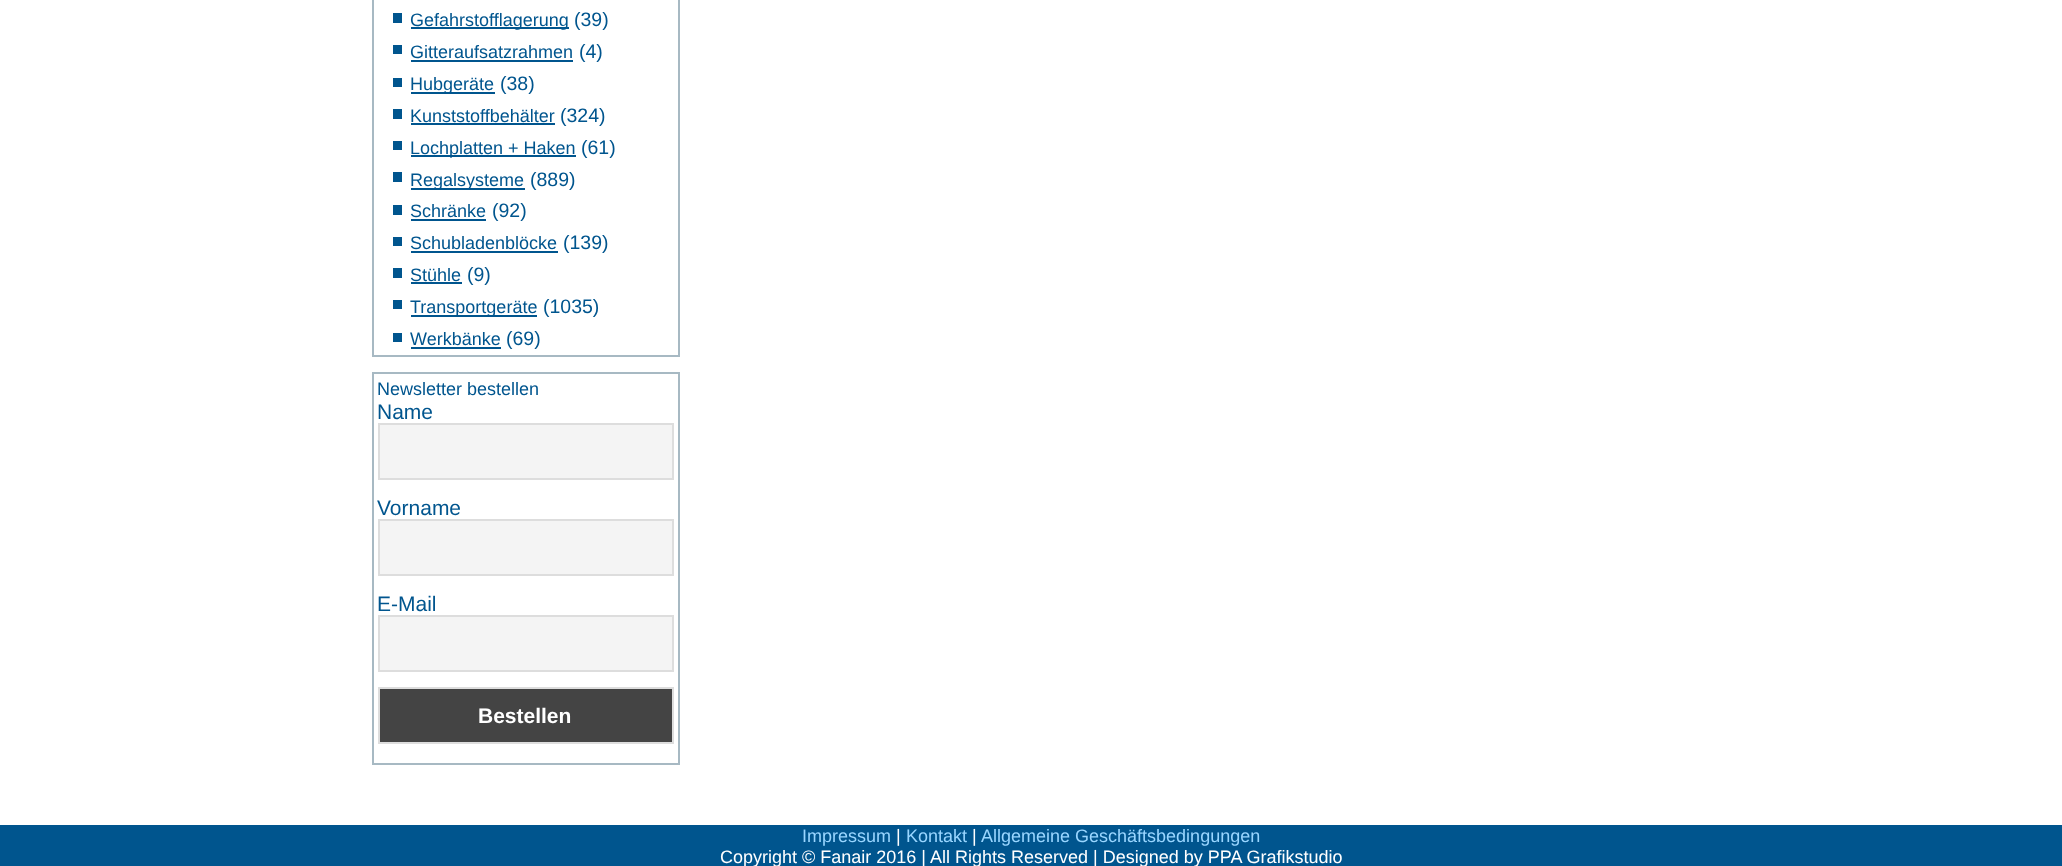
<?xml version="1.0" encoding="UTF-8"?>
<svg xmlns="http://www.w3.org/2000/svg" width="2062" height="866">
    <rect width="100%" height="100%" fill="#FFFFFF"/>
    <rect x="373" y="-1" width="306" height="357" fill="none" stroke="#A7B9C3" stroke-width="2"/>
    <rect x="393" y="13" width="9" height="10" fill="#00558E"/>
    <rect x="411" y="27" width="158" height="2" fill="#00558E"/>
    <text x="410" y="26" font-family="Liberation Sans" font-size="18" fill="#00558E">Gefahrstofflagerung</text>
    <text x="574" y="26" font-family="Liberation Sans" font-size="19.5" fill="#00558E">(39)</text>
    <rect x="393" y="45" width="9" height="9" fill="#00558E"/>
    <text x="410" y="58" font-family="Liberation Sans" font-size="18" fill="#00558E">Gitteraufsatzrahmen</text>
    <rect x="411" y="60" width="162" height="2" fill="#00558E"/>
    <text x="579" y="58" font-family="Liberation Sans" font-size="19.5" fill="#00558E">(4)</text>
    <rect x="393" y="78" width="9" height="9" fill="#00558E"/>
    <rect x="411" y="92" width="84" height="2" fill="#00558E"/>
    <text x="410" y="90" font-family="Liberation Sans" font-size="18" fill="#00558E">Hubgeräte</text>
    <text x="500" y="90" font-family="Liberation Sans" font-size="19.5" fill="#00558E">(38)</text>
    <rect x="393" y="109" width="9" height="10" fill="#00558E"/>
    <text x="410" y="122" font-family="Liberation Sans" font-size="18" fill="#00558E">Kunststoffbehälter</text>
    <rect x="411" y="123" width="144" height="2" fill="#00558E"/>
    <text x="560" y="122" font-family="Liberation Sans" font-size="19.5" fill="#00558E">(324)</text>
    <rect x="393" y="141" width="9" height="9" fill="#00558E"/>
    <rect x="411" y="155" width="165" height="2" fill="#00558E"/>
    <text x="410" y="154" font-family="Liberation Sans" font-size="18" fill="#00558E">Lochplatten + Haken</text>
    <text x="581" y="154" font-family="Liberation Sans" font-size="19.5" fill="#00558E">(61)</text>
    <rect x="393" y="172" width="9" height="10" fill="#00558E"/>
    <rect x="411" y="188" width="114" height="2" fill="#00558E"/>
    <text x="410" y="186" font-family="Liberation Sans" font-size="18" fill="#00558E">Regalsysteme</text>
    <text x="530" y="186" font-family="Liberation Sans" font-size="19.5" fill="#00558E">(889)</text>
    <rect x="393" y="205" width="9" height="10" fill="#00558E"/>
    <text x="410" y="217" font-family="Liberation Sans" font-size="18" fill="#00558E">Schränke</text>
    <rect x="411" y="219" width="75" height="2" fill="#00558E"/>
    <text x="492" y="217" font-family="Liberation Sans" font-size="19.5" fill="#00558E">(92)</text>
    <rect x="393" y="237" width="9" height="9" fill="#00558E"/>
    <text x="410" y="249" font-family="Liberation Sans" font-size="18" fill="#00558E">Schubladenblöcke</text>
    <rect x="411" y="251" width="147" height="2" fill="#00558E"/>
    <text x="563" y="249" font-family="Liberation Sans" font-size="19.5" fill="#00558E">(139)</text>
    <rect x="393" y="268" width="9" height="10" fill="#00558E"/>
    <text x="410" y="281" font-family="Liberation Sans" font-size="18" fill="#00558E">Stühle</text>
    <rect x="411" y="282" width="51" height="2" fill="#00558E"/>
    <text x="467" y="281" font-family="Liberation Sans" font-size="19.5" fill="#00558E">(9)</text>
    <rect x="393" y="300" width="9" height="9" fill="#00558E"/>
    <rect x="411" y="315" width="126" height="2" fill="#00558E"/>
    <text x="410" y="313" font-family="Liberation Sans" font-size="18" fill="#00558E">Transportgeräte</text>
    <text x="543" y="313" font-family="Liberation Sans" font-size="19.5" fill="#00558E">(1035)</text>
    <rect x="393" y="333" width="9" height="9" fill="#00558E"/>
    <text x="410" y="345" font-family="Liberation Sans" font-size="18" fill="#00558E">Werkbänke</text>
    <rect x="411" y="347" width="90" height="2" fill="#00558E"/>
    <text x="506" y="345" font-family="Liberation Sans" font-size="19.5" fill="#00558E">(69)</text>
    <rect x="373" y="373" width="306" height="391" fill="none" stroke="#A7B9C3" stroke-width="2"/>
    <text x="377" y="395" font-family="Liberation Sans" font-size="18" fill="#00558E">Newsletter bestellen</text>
    <text x="377" y="419" font-family="Liberation Sans" font-size="21" fill="#00558E">Name</text>
    <rect x="379" y="424" width="294" height="55" fill="#F4F4F4" stroke="#DDDDDD" stroke-width="2"/>
    <text x="377" y="515" font-family="Liberation Sans" font-size="21" fill="#00558E">Vorname</text>
    <rect x="379" y="520" width="294" height="55" fill="#F4F4F4" stroke="#DDDDDD" stroke-width="2"/>
    <text x="377" y="611" font-family="Liberation Sans" font-size="21" fill="#00558E">E-Mail</text>
    <rect x="379" y="616" width="294" height="55" fill="#F4F4F4" stroke="#DDDDDD" stroke-width="2"/>
    <rect x="379" y="688" width="294" height="55" fill="#444444" stroke="#DDDDDD" stroke-width="2"/>
    <text x="478" y="723" font-family="Liberation Sans" font-size="21" font-weight="700" fill="#FFFFFF">Bestellen</text>
    <rect x="0" y="825" width="2062" height="41" fill="#00558E"/>
    <text x="802" y="842" font-family="Liberation Sans" font-size="18" fill="#99D6FF">Impressum</text>
    <text x="896" y="842" font-family="Liberation Sans" font-size="18" fill="#FFFFFF">|</text>
    <text x="906" y="842" font-family="Liberation Sans" font-size="18" fill="#99D6FF">Kontakt</text>
    <text x="972" y="842" font-family="Liberation Sans" font-size="18" fill="#FFFFFF">|</text>
    <text x="981" y="842" font-family="Liberation Sans" font-size="18" fill="#99D6FF">Allgemeine Geschäftsbedingungen</text>
    <text x="720" y="863" font-family="Liberation Sans" font-size="18" fill="#FFFFFF">Copyright © Fanair 2016 |</text>
    <text x="930" y="863" font-family="Liberation Sans" font-size="18" fill="#FFFFFF">All Rights Reserved | Designed by PPA Grafikstudio</text>
</svg>
